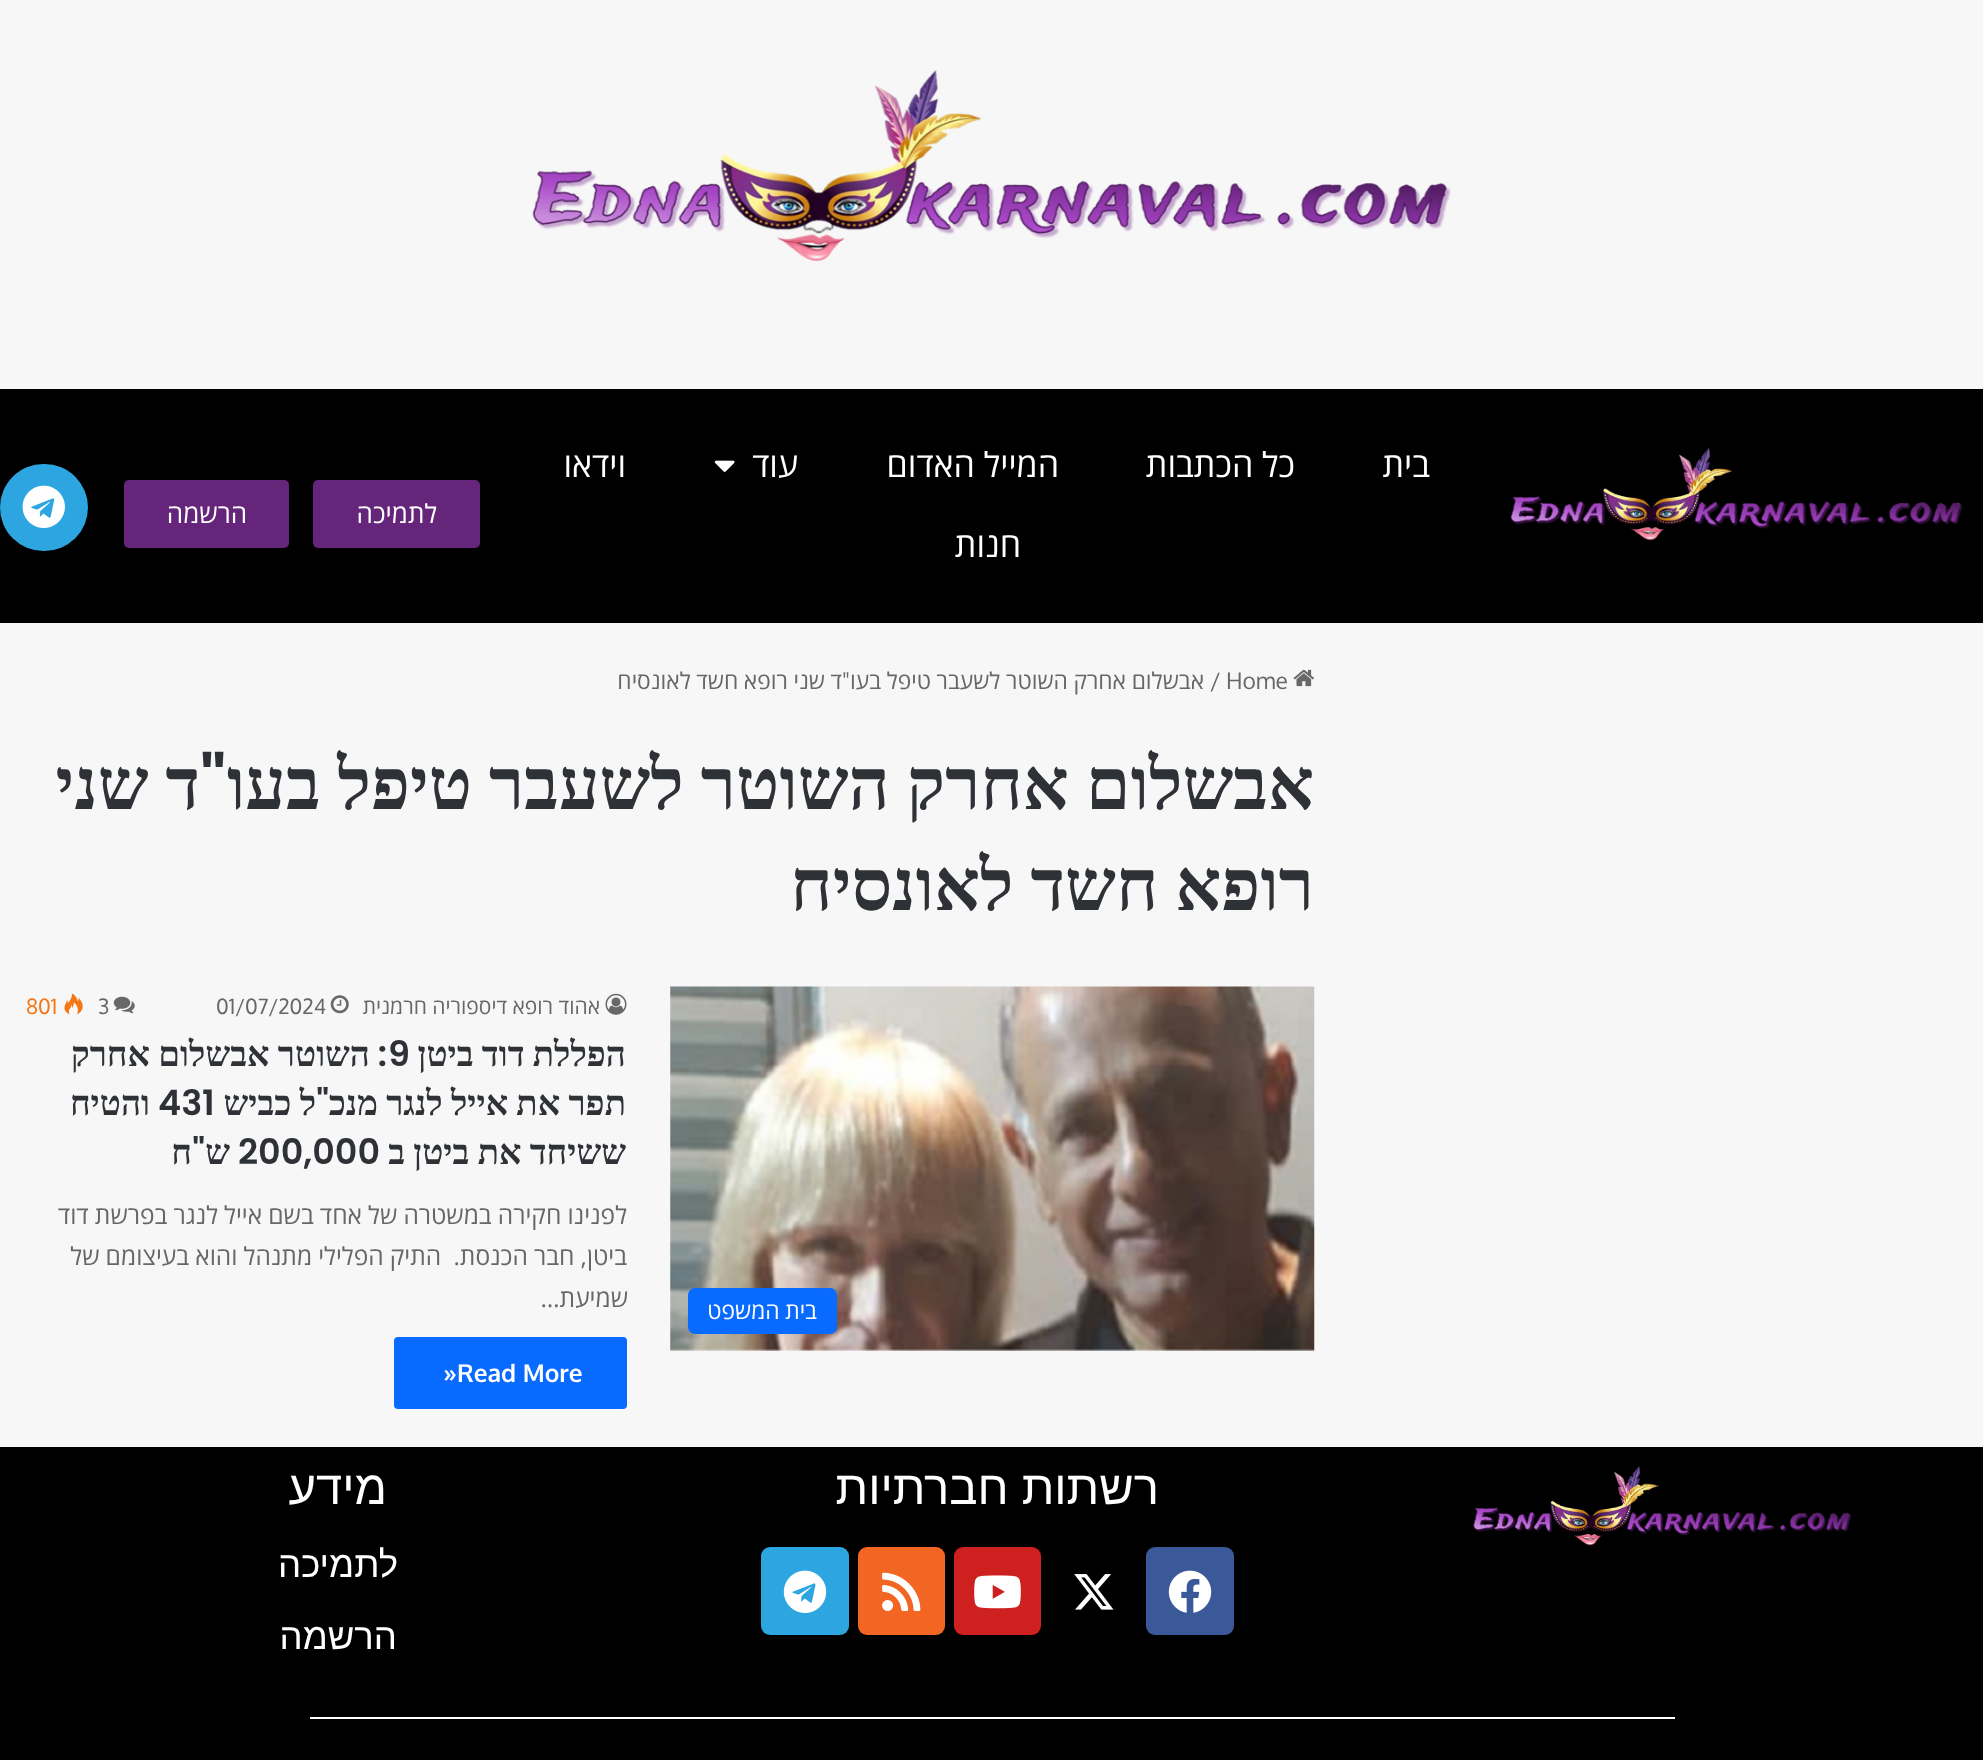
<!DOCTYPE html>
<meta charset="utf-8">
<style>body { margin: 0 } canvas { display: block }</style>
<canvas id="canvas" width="1983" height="1760"></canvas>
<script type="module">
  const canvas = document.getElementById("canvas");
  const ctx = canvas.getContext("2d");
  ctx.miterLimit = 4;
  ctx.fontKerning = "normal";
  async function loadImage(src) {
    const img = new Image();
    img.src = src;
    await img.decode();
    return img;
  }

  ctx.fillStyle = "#f7f7f7";
  ctx.fillRect(0, 0, 1983, 1760);
  ctx.drawImage(await loadImage("img1.png"), 532, 70, 919, 192);
  ctx.fillStyle = "#000000";
  ctx.fillRect(0, 389, 1983, 234);
  ctx.drawImage(await loadImage("img2.png"), 1510, 447, 453, 94);
  ctx.direction = "rtl";
  ctx.font = "34px Open Sans";
  ctx.fillStyle = "#ffffff";
  ctx.fillText("בית", 1430, 477);
  ctx.fillText("כל הכתבות", 1295, 477);
  ctx.fillText("המייל האדום", 1059, 477);
  ctx.fillText("עוד", 798, 477);
  ctx.drawImage(await loadImage("img3.png"), 714, 460, 21, 12);
  ctx.fillText("וידאו", 626, 477);
  ctx.fillText("חנות", 1021, 557);
  ctx.fillStyle = "#65257b";
  ctx.beginPath();
  ctx.roundRect(313, 480, 167, 68, 5);
  ctx.fill();
  ctx.font = "26px Open Sans";
  ctx.fillStyle = "#ffffff";
  ctx.fillText("לתמיכה", 437, 523);
  ctx.fillStyle = "#65257b";
  ctx.beginPath();
  ctx.roundRect(124, 480, 165, 68, 5);
  ctx.fill();
  ctx.fillStyle = "#ffffff";
  ctx.fillText("הרשמה", 247, 523);
  ctx.fillStyle = "#2ca5e0";
  ctx.beginPath();
  ctx.roundRect(0, 464, 88, 87, 43.5);
  ctx.fill();
  ctx.drawImage(await loadImage("img4.png"), 22, 485, 43, 43);
  ctx.drawImage(await loadImage("img5.png"), 1293, 669, 21, 18);
  ctx.direction = "ltr";
  ctx.font = "22.75px Oxygen";
  ctx.fillStyle = "#676767";
  ctx.fillText("Home", 1226, 689);
  ctx.fillText("/", 1210, 689);
  ctx.wordSpacing = "-0.25px";
  ctx.direction = "rtl";
  ctx.font = "22.75px Open Sans";
  ctx.fillText("אבשלום אחרק השוטר לשעבר טיפל בעו", 1204, 689);
  ctx.wordSpacing = "0px";
  ctx.font = "22.75px Oxygen";
  ctx.fillText("\"", 850, 689);
  ctx.wordSpacing = "-0.25px";
  ctx.font = "22.75px Open Sans";
  ctx.fillText("ד שני רופא חשד לאונסיח", 842, 689);
  ctx.wordSpacing = "-1px";
  ctx.font = "bold 71.75px Liberation Serif";
  ctx.fillStyle = "#2e3136";
  ctx.fillText("אבשלום אחרק השוטר לשעבר טיפל בעו", 1314, 809);
  ctx.wordSpacing = "0px";
  ctx.font = "600 71.75px Poppins";
  ctx.fillText("\"", 226, 809);
  ctx.wordSpacing = "-1px";
  ctx.font = "bold 71.75px Liberation Serif";
  ctx.fillText("ד שני", 200, 809);
  ctx.fillText("רופא חשד לאונסיח", 1314, 910);
  ctx.drawImage(await loadImage("img6.png"), 670, 986, 645, 365);
  ctx.fillStyle = "#086aff";
  ctx.beginPath();
  ctx.roundRect(688, 1288, 149, 46, 7);
  ctx.fill();
  ctx.wordSpacing = "-0.25px";
  ctx.font = "22.75px Open Sans";
  ctx.fillStyle = "#ffffff";
  ctx.fillText("בית המשפט", 817, 1319);
  ctx.drawImage(await loadImage("img7.png"), 605, 993, 22, 22);
  ctx.wordSpacing = "0px";
  ctx.font = "21px Open Sans";
  ctx.fillStyle = "#676767";
  ctx.fillText("אהוד רופא דיספוריה חרמנית", 600, 1014);
  ctx.drawImage(await loadImage("img8.png"), 330, 995, 19, 19);
  ctx.direction = "ltr";
  ctx.font = "21px Oxygen";
  ctx.fillText("01/07/2024", 216, 1014);
  ctx.drawImage(await loadImage("img9.png"), 113, 996, 22, 18);
  ctx.fillText("3", 98, 1014);
  ctx.drawImage(await loadImage("img10.png"), 64, 993, 19, 22);
  ctx.fillStyle = "#f47614";
  ctx.fillText("801", 26, 1014);
  ctx.wordSpacing = "-0.5px";
  ctx.direction = "rtl";
  ctx.font = "bold 35px Liberation Serif";
  ctx.fillStyle = "#2e3136";
  ctx.fillText("הפללת דוד ביטן", 626, 1066);
  ctx.wordSpacing = "0px";
  ctx.direction = "ltr";
  ctx.font = "600 35px Poppins";
  ctx.fillText("9", 388, 1066);
  ctx.direction = "rtl";
  ctx.fillText(":", 387, 1066);
  ctx.wordSpacing = "-0.5px";
  ctx.font = "bold 35px Liberation Serif";
  ctx.fillText("השוטר אבשלום אחרק", 370, 1066);
  ctx.fillText("תפר את אייל לנגר מנכ", 626, 1115);
  ctx.wordSpacing = "0px";
  ctx.font = "600 35px Poppins";
  ctx.fillText("\"", 329, 1115);
  ctx.wordSpacing = "-0.5px";
  ctx.font = "bold 35px Liberation Serif";
  ctx.fillText("ל כביש", 316, 1115);
  ctx.wordSpacing = "0px";
  ctx.direction = "ltr";
  ctx.font = "600 35px Poppins";
  ctx.fillText("431", 158, 1115);
  ctx.direction = "rtl";
  ctx.font = "bold 35px Liberation Serif";
  ctx.fillText("והטיח", 150, 1115);
  ctx.wordSpacing = "-0.5px";
  ctx.fillText("ששיחד את ביטן ב", 626, 1164);
  ctx.wordSpacing = "0px";
  ctx.direction = "ltr";
  ctx.font = "600 35px Poppins";
  ctx.fillText("200,000", 238, 1164);
  ctx.direction = "rtl";
  ctx.font = "bold 35px Liberation Serif";
  ctx.fillText("ש", 230, 1164);
  ctx.font = "600 35px Poppins";
  ctx.fillText("\"", 205, 1164);
  ctx.font = "bold 35px Liberation Serif";
  ctx.fillText("ח", 192, 1164);
  ctx.wordSpacing = "-0.25px";
  ctx.font = "24.5px Open Sans";
  ctx.fillStyle = "#676767";
  ctx.fillText("לפנינו חקירה במשטרה של אחד בשם אייל לנגר בפרשת דוד", 627, 1224);
  ctx.fillText("ביטן, חבר הכנסת.  התיק הפלילי מתנהל והוא בעיצומם של", 627, 1265);
  ctx.wordSpacing = "0px";
  ctx.fillText("שמיעת…", 628, 1307);
  ctx.fillStyle = "#086aff";
  ctx.beginPath();
  ctx.roundRect(394, 1337, 233, 72, 4);
  ctx.fill();
  ctx.direction = "ltr";
  ctx.font = "bold 24.5px Oxygen";
  ctx.fillStyle = "#ffffff";
  ctx.fillText("»Read More", 443, 1382);
  ctx.fillStyle = "#000000";
  ctx.fillRect(0, 1447, 1983, 313);
  ctx.drawImage(await loadImage("img11.png"), 1473, 1466, 379, 80);
  ctx.direction = "rtl";
  ctx.font = "47.25px Liberation Sans";
  ctx.fillStyle = "#ffffff";
  ctx.fillText("רשתות חברתיות", 1159, 1504);
  ctx.fillStyle = "#3b5998";
  ctx.beginPath();
  ctx.roundRect(1146, 1547, 88, 88, 9);
  ctx.fill();
  ctx.drawImage(await loadImage("img12.png"), 1168, 1570, 44, 43);
  ctx.drawImage(await loadImage("img13.png"), 1074, 1574, 40, 36);
  ctx.fillStyle = "#cd201f";
  ctx.beginPath();
  ctx.roundRect(954, 1547, 87, 88, 9);
  ctx.fill();
  ctx.drawImage(await loadImage("img14.png"), 974, 1575, 47, 34);
  ctx.fillStyle = "#f26522";
  ctx.beginPath();
  ctx.roundRect(858, 1547, 87, 88, 9);
  ctx.fill();
  ctx.drawImage(await loadImage("img15.png"), 882, 1572, 39, 39);
  ctx.fillStyle = "#2ca5e0";
  ctx.beginPath();
  ctx.roundRect(761, 1547, 88, 88, 9);
  ctx.fill();
  ctx.drawImage(await loadImage("img16.png"), 783, 1570, 44, 43);
  ctx.fillStyle = "#ffffff";
  ctx.fillText("מידע", 387, 1504);
  ctx.font = "36.5px Liberation Sans";
  ctx.fillText("לתמיכה", 398, 1577);
  ctx.fillText("הרשמה", 397, 1649);
  ctx.fillRect(310, 1717, 1365, 2);
</script>
